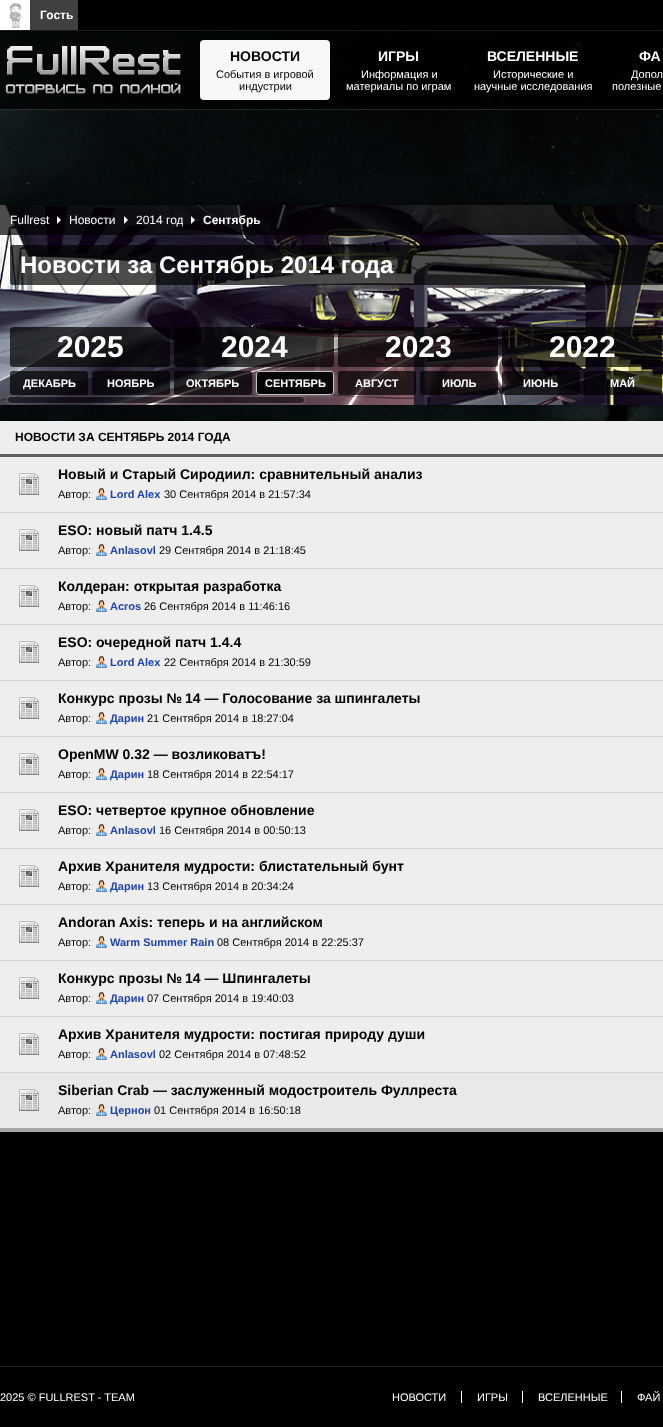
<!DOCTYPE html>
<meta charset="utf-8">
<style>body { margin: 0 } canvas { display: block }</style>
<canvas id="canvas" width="663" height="1427"></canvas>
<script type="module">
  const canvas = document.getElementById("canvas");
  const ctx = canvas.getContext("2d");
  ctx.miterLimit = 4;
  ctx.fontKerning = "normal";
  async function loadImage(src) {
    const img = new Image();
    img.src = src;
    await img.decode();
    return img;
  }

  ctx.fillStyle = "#000000";
  ctx.fillRect(0, 0, 663, 1427);
  ctx.drawImage(await loadImage("img1.png"), 0, 30, 663, 391);
  ctx.fillStyle = "rgba(0, 0, 0, 0.7)";
  ctx.fillRect(0, 30, 663, 80);
  ctx.fillStyle = "rgba(255, 255, 255, 0.15)";
  ctx.fillRect(0, 30, 663, 1);
  ctx.fillStyle = "rgba(0, 0, 0, 0.5)";
  ctx.filter = "blur(1.5px)";
  ctx.beginPath();
  ctx.rect(0, 1, 663, 30);
  ctx.fill();
  ctx.filter = "none";
  ctx.fillStyle = "#404040";
  ctx.fillRect(30, 0, 48, 30);
  ctx.drawImage(await loadImage("img2.png"), 0, 0, 30, 30);
  ctx.font = "bold 12px Liberation Sans";
  ctx.fillStyle = "#ffffff";
  ctx.fillText("Гость", 40, 19);
  ctx.fillStyle = "rgba(255, 255, 255, 0.15)";
  ctx.fillRect(0, 109, 663, 1);
  ctx.drawImage(await loadImage("img3.png"), 5, 46, 176, 48);
  ctx.fillStyle = "#f8f8f8";
  ctx.beginPath();
  ctx.roundRect(200, 40, 130, 60, 4);
  ctx.fill();
  ctx.font = "bold 14px Liberation Sans";
  ctx.fillStyle = "#000000";
  ctx.fillText("НОВОСТИ", 230, 61);
  ctx.font = "11px Liberation Sans";
  ctx.fillText("События в игровой", 216, 78);
  ctx.fillText("индустрии", 239, 90);
  ctx.font = "bold 14px Liberation Sans";
  ctx.fillStyle = "#ffffff";
  ctx.fillText("ИГРЫ", 378, 61);
  ctx.font = "11px Liberation Sans";
  ctx.fillText("Информация и", 361, 78);
  ctx.fillText("материалы по играм", 346, 90);
  ctx.font = "bold 14px Liberation Sans";
  ctx.fillText("ВСЕЛЕННЫЕ", 487, 61);
  ctx.font = "11px Liberation Sans";
  ctx.fillText("Исторические и", 493, 78);
  ctx.fillText("научные исследования", 474, 90);
  ctx.font = "bold 14px Liberation Sans";
  ctx.fillText("ФА", 639, 61);
  ctx.font = "11px Liberation Sans";
  ctx.fillText("Допол", 631, 78);
  ctx.fillText("полезные", 612, 90);
  ctx.fillStyle = "rgba(0, 0, 0, 0.5)";
  ctx.filter = "blur(5px)";
  ctx.beginPath();
  ctx.rect(0, 205, 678, 200);
  ctx.fill();
  ctx.filter = "none";
  ctx.drawImage(await loadImage("img4.png"), 0, 205, 663, 200);
  ctx.fillStyle = "rgba(0, 0, 0, 0.7)";
  ctx.fillRect(0, 205, 663, 30);
  ctx.font = "12px Liberation Sans";
  ctx.fillStyle = "#ffffff";
  ctx.fillText("Fullrest", 10, 224);
  ctx.beginPath();
  ctx.moveTo(57, 224);
  ctx.lineTo(57, 216);
  ctx.lineTo(61, 220);
  ctx.closePath();
  ctx.fill();
  ctx.fillText("Новости", 69, 224);
  ctx.beginPath();
  ctx.moveTo(124, 224);
  ctx.lineTo(124, 216);
  ctx.lineTo(128, 220);
  ctx.closePath();
  ctx.fill();
  ctx.save();
  ctx.beginPath();
  ctx.rect(136, 210, 47, 20);
  ctx.clip();
  ctx.fillText("2014 год", 136, 224);
  ctx.restore();
  ctx.beginPath();
  ctx.moveTo(191, 224);
  ctx.lineTo(191, 216);
  ctx.lineTo(195, 220);
  ctx.closePath();
  ctx.fill();
  ctx.font = "bold 12px Liberation Sans";
  ctx.fillText("Сентябрь", 203, 224);
  ctx.fillStyle = "rgba(0, 0, 0, 0.7)";
  ctx.beginPath();
  ctx.roundRect(10, 245, 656, 40, 3);
  ctx.fill();
  ctx.font = "bold 24px Liberation Sans";
  ctx.fillStyle = "#ffffff";
  ctx.fillText("Новости за Сентябрь 2014 года", 20, 273);
  ctx.fillStyle = "rgba(0, 0, 0, 0.7)";
  ctx.beginPath();
  ctx.roundRect(10, 327, 160, 40, 3);
  ctx.fill();
  ctx.font = "bold 30px Liberation Sans";
  ctx.fillStyle = "#ffffff";
  ctx.fillText("2025", 57, 357);
  ctx.fillStyle = "rgba(0, 0, 0, 0.7)";
  ctx.beginPath();
  ctx.roundRect(174, 327, 160, 40, 3);
  ctx.fill();
  ctx.fillStyle = "#ffffff";
  ctx.fillText("2024", 221, 357);
  ctx.fillStyle = "rgba(0, 0, 0, 0.7)";
  ctx.beginPath();
  ctx.roundRect(338, 327, 160, 40, 3);
  ctx.fill();
  ctx.fillStyle = "#ffffff";
  ctx.fillText("2023", 385, 357);
  ctx.fillStyle = "rgba(0, 0, 0, 0.7)";
  ctx.beginPath();
  ctx.roundRect(502, 327, 160, 40, 3);
  ctx.fill();
  ctx.fillStyle = "#ffffff";
  ctx.fillText("2022", 549, 357);
  ctx.fillStyle = "rgba(0, 0, 0, 0.7)";
  ctx.beginPath();
  ctx.roundRect(10, 371, 78, 24, 3);
  ctx.fill();
  ctx.font = "bold 11px Liberation Sans";
  ctx.fillStyle = "#ffffff";
  ctx.fillText("ДЕКАБРЬ", 23, 387);
  ctx.fillStyle = "rgba(0, 0, 0, 0.7)";
  ctx.beginPath();
  ctx.roundRect(92, 371, 78, 24, 3);
  ctx.fill();
  ctx.fillStyle = "#ffffff";
  ctx.fillText("НОЯБРЬ", 107, 387);
  ctx.fillStyle = "rgba(0, 0, 0, 0.7)";
  ctx.beginPath();
  ctx.roundRect(174, 371, 78, 24, 3);
  ctx.fill();
  ctx.fillStyle = "#ffffff";
  ctx.fillText("ОКТЯБРЬ", 186, 387);
  ctx.save();
  ctx.beginPath();
  ctx.moveTo(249, 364);
  ctx.lineTo(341, 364);
  ctx.lineTo(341, 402);
  ctx.lineTo(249, 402);
  ctx.closePath();
  ctx.moveTo(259, 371);
  ctx.lineTo(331, 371);
  ctx.bezierCurveTo(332.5, 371, 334, 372.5, 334, 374);
  ctx.lineTo(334, 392);
  ctx.bezierCurveTo(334, 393.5, 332.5, 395, 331, 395);
  ctx.lineTo(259, 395);
  ctx.bezierCurveTo(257.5, 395, 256, 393.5, 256, 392);
  ctx.lineTo(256, 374);
  ctx.bezierCurveTo(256, 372.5, 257.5, 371, 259, 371);
  ctx.closePath();
  ctx.clip("evenodd");
  ctx.fillStyle = "rgba(255, 255, 255, 0.4)";
  ctx.filter = "blur(2px)";
  ctx.beginPath();
  ctx.roundRect(256, 371, 78, 24, 3);
  ctx.fill();
  ctx.filter = "none";
  ctx.restore();
  ctx.fillStyle = "rgba(0, 0, 0, 0.9)";
  ctx.beginPath();
  ctx.roundRect(256, 371, 78, 24, 3);
  ctx.fill();
  ctx.beginPath();
  ctx.roundRect(256.5, 371.5, 77, 23, 2.5);
  ctx.strokeStyle = "rgba(255, 255, 255, 0.75)";
  ctx.stroke();
  ctx.fillStyle = "#ffffff";
  ctx.fillText("СЕНТЯБРЬ", 265, 387);
  ctx.fillStyle = "rgba(0, 0, 0, 0.7)";
  ctx.beginPath();
  ctx.roundRect(338, 371, 78, 24, 3);
  ctx.fill();
  ctx.fillStyle = "#ffffff";
  ctx.fillText("АВГУСТ", 355, 387);
  ctx.fillStyle = "rgba(0, 0, 0, 0.7)";
  ctx.beginPath();
  ctx.roundRect(420, 371, 78, 24, 3);
  ctx.fill();
  ctx.fillStyle = "#ffffff";
  ctx.fillText("ИЮЛЬ", 442, 387);
  ctx.fillStyle = "rgba(0, 0, 0, 0.7)";
  ctx.beginPath();
  ctx.roundRect(502, 371, 78, 24, 3);
  ctx.fill();
  ctx.fillStyle = "#ffffff";
  ctx.fillText("ИЮНЬ", 523, 387);
  ctx.fillStyle = "rgba(0, 0, 0, 0.7)";
  ctx.beginPath();
  ctx.roundRect(584, 371, 78, 24, 3);
  ctx.fill();
  ctx.fillStyle = "#ffffff";
  ctx.fillText("МАЙ", 610, 387);
  ctx.save();
  ctx.beginPath();
  ctx.moveTo(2, 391);
  ctx.lineTo(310, 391);
  ctx.lineTo(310, 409);
  ctx.lineTo(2, 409);
  ctx.closePath();
  ctx.moveTo(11, 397);
  ctx.lineTo(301, 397);
  ctx.bezierCurveTo(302.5, 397, 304, 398.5, 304, 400);
  ctx.bezierCurveTo(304, 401.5, 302.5, 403, 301, 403);
  ctx.lineTo(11, 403);
  ctx.bezierCurveTo(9.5, 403, 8, 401.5, 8, 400);
  ctx.bezierCurveTo(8, 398.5, 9.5, 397, 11, 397);
  ctx.closePath();
  ctx.clip("evenodd");
  ctx.fillStyle = "rgba(255, 255, 255, 0.4)";
  ctx.filter = "blur(1.5px)";
  ctx.beginPath();
  ctx.roundRect(8, 397, 296, 6, 3);
  ctx.fill();
  ctx.filter = "none";
  ctx.restore();
  ctx.fillStyle = "rgba(0, 0, 0, 0.5)";
  ctx.beginPath();
  ctx.roundRect(8, 397, 296, 6, 3);
  ctx.fill();
  ctx.filter = "blur(5px)";
  ctx.beginPath();
  ctx.rect(0, 421, 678, 711);
  ctx.fill();
  ctx.filter = "none";
  ctx.fillStyle = "#eeeeee";
  ctx.fillRect(0, 421, 663, 651);
  ctx.fillStyle = "#5f5f5f";
  ctx.fillRect(0, 454, 663, 3);
  ctx.font = "bold 12px Liberation Sans";
  ctx.fillStyle = "#000000";
  ctx.fillText("НОВОСТИ ЗА СЕНТЯБРЬ 2014 ГОДА", 15, 441);
  ctx.drawImage(await loadImage("img5.png"), 19, 473, 20, 22);
  ctx.font = "bold 14px Liberation Sans";
  ctx.fillText("Новый и Старый Сиродиил: сравнительный анализ", 58, 479);
  ctx.font = "11px Liberation Sans";
  ctx.fillText("Автор:", 58, 498);
  ctx.drawImage(await loadImage("img6.png"), 96, 488, 11, 12);
  ctx.font = "bold 11px Liberation Sans";
  ctx.fillStyle = "#1e43af";
  ctx.fillText("Lord Alex", 110, 498);
  ctx.font = "11px Liberation Sans";
  ctx.fillStyle = "#000000";
  ctx.fillText("30 Сентября 2014 в 21:57:34", 164, 498);
  ctx.fillStyle = "#d6d6d6";
  ctx.fillRect(0, 512, 663, 1);
  ctx.drawImage(await loadImage("img7.png"), 19, 529, 20, 22);
  ctx.font = "bold 14px Liberation Sans";
  ctx.fillStyle = "#000000";
  ctx.fillText("ESO: новый патч 1.4.5", 58, 535);
  ctx.font = "11px Liberation Sans";
  ctx.fillText("Автор:", 58, 554);
  ctx.drawImage(await loadImage("img8.png"), 96, 544, 11, 12);
  ctx.font = "bold 11px Liberation Sans";
  ctx.fillStyle = "#1e43af";
  ctx.fillText("Anlasovl", 110, 554);
  ctx.font = "11px Liberation Sans";
  ctx.fillStyle = "#000000";
  ctx.fillText("29 Сентября 2014 в 21:18:45", 159, 554);
  ctx.fillStyle = "#d6d6d6";
  ctx.fillRect(0, 568, 663, 1);
  ctx.drawImage(await loadImage("img5.png"), 19, 585, 20, 22);
  ctx.font = "bold 14px Liberation Sans";
  ctx.fillStyle = "#000000";
  ctx.fillText("Колдеран: открытая разработка", 58, 591);
  ctx.font = "11px Liberation Sans";
  ctx.fillText("Автор:", 58, 610);
  ctx.drawImage(await loadImage("img6.png"), 96, 600, 11, 12);
  ctx.font = "bold 11px Liberation Sans";
  ctx.fillStyle = "#1e43af";
  ctx.fillText("Acros", 110, 610);
  ctx.font = "11px Liberation Sans";
  ctx.fillStyle = "#000000";
  ctx.fillText("26 Сентября 2014 в 11:46:16", 144, 610);
  ctx.fillStyle = "#d6d6d6";
  ctx.fillRect(0, 624, 663, 1);
  ctx.drawImage(await loadImage("img7.png"), 19, 641, 20, 22);
  ctx.font = "bold 14px Liberation Sans";
  ctx.fillStyle = "#000000";
  ctx.fillText("ESO: очередной патч 1.4.4", 58, 647);
  ctx.font = "11px Liberation Sans";
  ctx.fillText("Автор:", 58, 666);
  ctx.drawImage(await loadImage("img8.png"), 96, 656, 11, 12);
  ctx.font = "bold 11px Liberation Sans";
  ctx.fillStyle = "#1e43af";
  ctx.fillText("Lord Alex", 110, 666);
  ctx.font = "11px Liberation Sans";
  ctx.fillStyle = "#000000";
  ctx.fillText("22 Сентября 2014 в 21:30:59", 164, 666);
  ctx.fillStyle = "#d6d6d6";
  ctx.fillRect(0, 680, 663, 1);
  ctx.drawImage(await loadImage("img5.png"), 19, 697, 20, 22);
  ctx.font = "bold 14px Liberation Sans";
  ctx.fillStyle = "#000000";
  ctx.fillText("Конкурс прозы № 14 — Голосование за шпингалеты", 58, 703);
  ctx.font = "11px Liberation Sans";
  ctx.fillText("Автор:", 58, 722);
  ctx.drawImage(await loadImage("img6.png"), 96, 712, 11, 12);
  ctx.font = "bold 11px Liberation Sans";
  ctx.fillStyle = "#1e43af";
  ctx.fillText("Дарин", 110, 722);
  ctx.font = "11px Liberation Sans";
  ctx.fillStyle = "#000000";
  ctx.fillText("21 Сентября 2014 в 18:27:04", 147, 722);
  ctx.fillStyle = "#d6d6d6";
  ctx.fillRect(0, 736, 663, 1);
  ctx.drawImage(await loadImage("img7.png"), 19, 753, 20, 22);
  ctx.font = "bold 14px Liberation Sans";
  ctx.fillStyle = "#000000";
  ctx.fillText("OpenMW 0.32 — возликоватъ!", 58, 759);
  ctx.font = "11px Liberation Sans";
  ctx.fillText("Автор:", 58, 778);
  ctx.drawImage(await loadImage("img8.png"), 96, 768, 11, 12);
  ctx.font = "bold 11px Liberation Sans";
  ctx.fillStyle = "#1e43af";
  ctx.fillText("Дарин", 110, 778);
  ctx.font = "11px Liberation Sans";
  ctx.fillStyle = "#000000";
  ctx.fillText("18 Сентября 2014 в 22:54:17", 147, 778);
  ctx.fillStyle = "#d6d6d6";
  ctx.fillRect(0, 792, 663, 1);
  ctx.drawImage(await loadImage("img5.png"), 19, 809, 20, 22);
  ctx.font = "bold 14px Liberation Sans";
  ctx.fillStyle = "#000000";
  ctx.fillText("ESO: четвертое крупное обновление", 58, 815);
  ctx.font = "11px Liberation Sans";
  ctx.fillText("Автор:", 58, 834);
  ctx.drawImage(await loadImage("img6.png"), 96, 824, 11, 12);
  ctx.font = "bold 11px Liberation Sans";
  ctx.fillStyle = "#1e43af";
  ctx.fillText("Anlasovl", 110, 834);
  ctx.font = "11px Liberation Sans";
  ctx.fillStyle = "#000000";
  ctx.fillText("16 Сентября 2014 в 00:50:13", 159, 834);
  ctx.fillStyle = "#d6d6d6";
  ctx.fillRect(0, 848, 663, 1);
  ctx.drawImage(await loadImage("img7.png"), 19, 865, 20, 22);
  ctx.font = "bold 14px Liberation Sans";
  ctx.fillStyle = "#000000";
  ctx.fillText("Архив Хранителя мудрости: блистательный бунт", 58, 871);
  ctx.font = "11px Liberation Sans";
  ctx.fillText("Автор:", 58, 890);
  ctx.drawImage(await loadImage("img8.png"), 96, 880, 11, 12);
  ctx.font = "bold 11px Liberation Sans";
  ctx.fillStyle = "#1e43af";
  ctx.fillText("Дарин", 110, 890);
  ctx.font = "11px Liberation Sans";
  ctx.fillStyle = "#000000";
  ctx.fillText("13 Сентября 2014 в 20:34:24", 147, 890);
  ctx.fillStyle = "#d6d6d6";
  ctx.fillRect(0, 904, 663, 1);
  ctx.drawImage(await loadImage("img5.png"), 19, 921, 20, 22);
  ctx.font = "bold 14px Liberation Sans";
  ctx.fillStyle = "#000000";
  ctx.fillText("Andoran Axis: теперь и на английском", 58, 927);
  ctx.font = "11px Liberation Sans";
  ctx.fillText("Автор:", 58, 946);
  ctx.drawImage(await loadImage("img6.png"), 96, 936, 11, 12);
  ctx.font = "bold 11px Liberation Sans";
  ctx.fillStyle = "#1e43af";
  ctx.fillText("Warm Summer Rain", 110, 946);
  ctx.font = "11px Liberation Sans";
  ctx.fillStyle = "#000000";
  ctx.fillText("08 Сентября 2014 в 22:25:37", 217, 946);
  ctx.fillStyle = "#d6d6d6";
  ctx.fillRect(0, 960, 663, 1);
  ctx.drawImage(await loadImage("img7.png"), 19, 977, 20, 22);
  ctx.font = "bold 14px Liberation Sans";
  ctx.fillStyle = "#000000";
  ctx.fillText("Конкурс прозы № 14 — Шпингалеты", 58, 983);
  ctx.font = "11px Liberation Sans";
  ctx.fillText("Автор:", 58, 1002);
  ctx.drawImage(await loadImage("img8.png"), 96, 992, 11, 12);
  ctx.font = "bold 11px Liberation Sans";
  ctx.fillStyle = "#1e43af";
  ctx.fillText("Дарин", 110, 1002);
  ctx.font = "11px Liberation Sans";
  ctx.fillStyle = "#000000";
  ctx.fillText("07 Сентября 2014 в 19:40:03", 147, 1002);
  ctx.fillStyle = "#d6d6d6";
  ctx.fillRect(0, 1016, 663, 1);
  ctx.drawImage(await loadImage("img5.png"), 19, 1033, 20, 22);
  ctx.font = "bold 14px Liberation Sans";
  ctx.fillStyle = "#000000";
  ctx.fillText("Архив Хранителя мудрости: постигая природу души", 58, 1039);
  ctx.font = "11px Liberation Sans";
  ctx.fillText("Автор:", 58, 1058);
  ctx.drawImage(await loadImage("img6.png"), 96, 1048, 11, 12);
  ctx.font = "bold 11px Liberation Sans";
  ctx.fillStyle = "#1e43af";
  ctx.fillText("Anlasovl", 110, 1058);
  ctx.font = "11px Liberation Sans";
  ctx.fillStyle = "#000000";
  ctx.fillText("02 Сентября 2014 в 07:48:52", 159, 1058);
  ctx.fillStyle = "#d6d6d6";
  ctx.fillRect(0, 1072, 663, 1);
  ctx.fillStyle = "#e9e9e9";
  ctx.fillRect(0, 1073, 663, 55);
  ctx.drawImage(await loadImage("img9.png"), 19, 1089, 20, 22);
  ctx.font = "bold 14px Liberation Sans";
  ctx.fillStyle = "#000000";
  ctx.fillText("Siberian Crab — заслуженный модостроитель Фуллреста", 58, 1095);
  ctx.font = "11px Liberation Sans";
  ctx.fillText("Автор:", 58, 1114);
  ctx.drawImage(await loadImage("img10.png"), 96, 1104, 11, 12);
  ctx.font = "bold 11px Liberation Sans";
  ctx.fillStyle = "#1e43af";
  ctx.fillText("Цернон", 110, 1114);
  ctx.font = "11px Liberation Sans";
  ctx.fillStyle = "#000000";
  ctx.fillText("01 Сентября 2014 в 16:50:18", 154, 1114);
  ctx.fillStyle = "#a7a7a7";
  ctx.fillRect(0, 1128, 663, 4);
  ctx.fillStyle = "#262626";
  ctx.fillRect(0, 1366, 663, 1);
  ctx.fillStyle = "#ffffff";
  ctx.fillText("2025 © FULLREST - TEAM", 0, 1401);
  ctx.fillText("НОВОСТИ", 392, 1401);
  ctx.fillRect(461, 1391, 1, 12);
  ctx.fillText("ИГРЫ", 477, 1401);
  ctx.fillRect(522, 1391, 1, 12);
  ctx.fillText("ВСЕЛЕННЫЕ", 538, 1401);
  ctx.fillRect(621, 1391, 1, 12);
  ctx.fillText("ФАЙ", 637, 1401);
</script>
